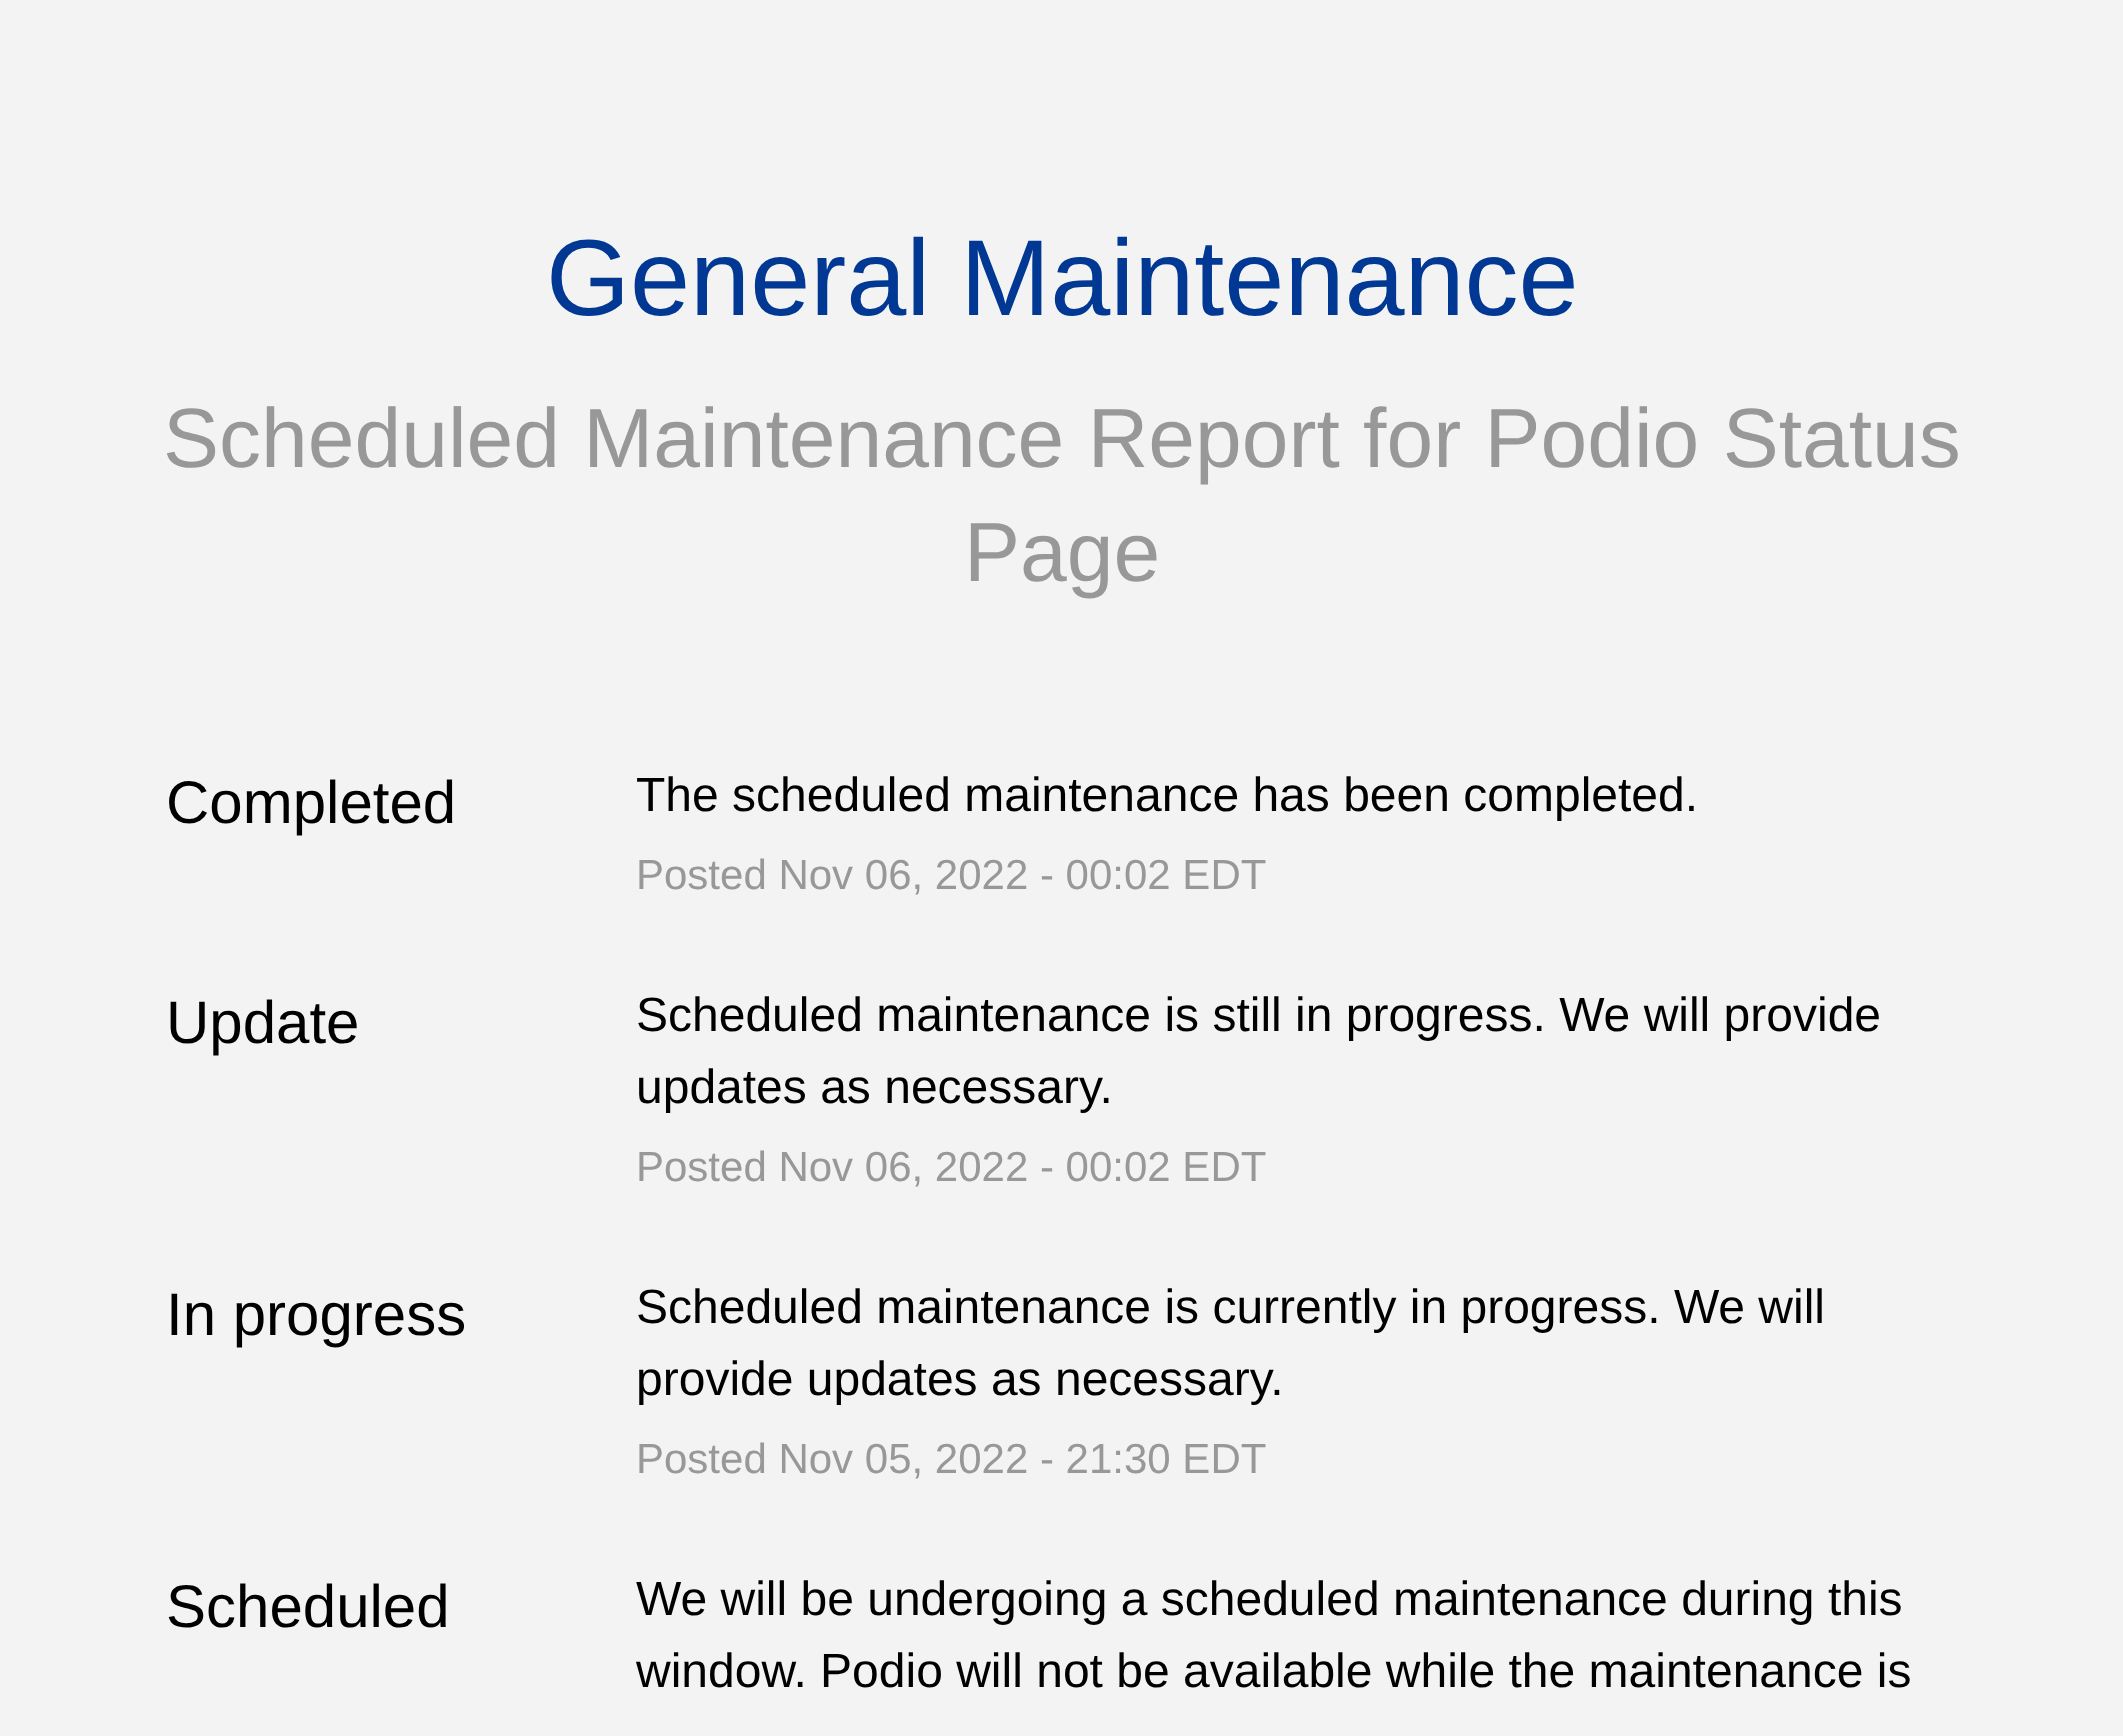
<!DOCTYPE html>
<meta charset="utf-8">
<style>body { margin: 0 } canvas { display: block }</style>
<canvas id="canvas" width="2123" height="1736"></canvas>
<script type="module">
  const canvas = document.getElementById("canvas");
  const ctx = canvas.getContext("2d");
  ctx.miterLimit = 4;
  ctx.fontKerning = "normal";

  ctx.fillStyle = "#f3f3f3";
  ctx.fillRect(0, 0, 2123, 1736);
  ctx.font = "108px Liberation Sans";
  ctx.fillStyle = "#003894";
  ctx.fillText("General Maintenance", 546, 315);
  ctx.font = "84px Liberation Sans";
  ctx.fillStyle = "#989898";
  ctx.fillText("Scheduled Maintenance Report for Podio Status", 163, 467);
  ctx.fillText("Page", 964, 581);
  ctx.font = "60px Liberation Sans";
  ctx.fillStyle = "#000000";
  ctx.fillText("Completed", 166, 823);
  ctx.font = "48px Liberation Sans";
  ctx.fillText("The scheduled maintenance has been completed.", 636, 811);
  ctx.font = "42px Liberation Sans";
  ctx.fillStyle = "#989898";
  ctx.fillText("Posted Nov 06, 2022 - 00:02 EDT", 636, 889);
  ctx.font = "60px Liberation Sans";
  ctx.fillStyle = "#000000";
  ctx.fillText("Update", 166, 1043);
  ctx.font = "48px Liberation Sans";
  ctx.fillText("Scheduled maintenance is still in progress. We will provide", 636, 1031);
  ctx.fillText("updates as necessary.", 636, 1103);
  ctx.font = "42px Liberation Sans";
  ctx.fillStyle = "#989898";
  ctx.fillText("Posted Nov 06, 2022 - 00:02 EDT", 636, 1181);
  ctx.font = "60px Liberation Sans";
  ctx.fillStyle = "#000000";
  ctx.fillText("In progress", 166, 1335);
  ctx.font = "48px Liberation Sans";
  ctx.fillText("Scheduled maintenance is currently in progress. We will", 636, 1323);
  ctx.fillText("provide updates as necessary.", 636, 1395);
  ctx.font = "42px Liberation Sans";
  ctx.fillStyle = "#989898";
  ctx.fillText("Posted Nov 05, 2022 - 21:30 EDT", 636, 1473);
  ctx.font = "60px Liberation Sans";
  ctx.fillStyle = "#000000";
  ctx.fillText("Scheduled", 166, 1627);
  ctx.font = "48px Liberation Sans";
  ctx.fillText("We will be undergoing a scheduled maintenance during this", 636, 1615);
  ctx.fillText("window. Podio will not be available while the maintenance is", 636, 1687);
</script>
